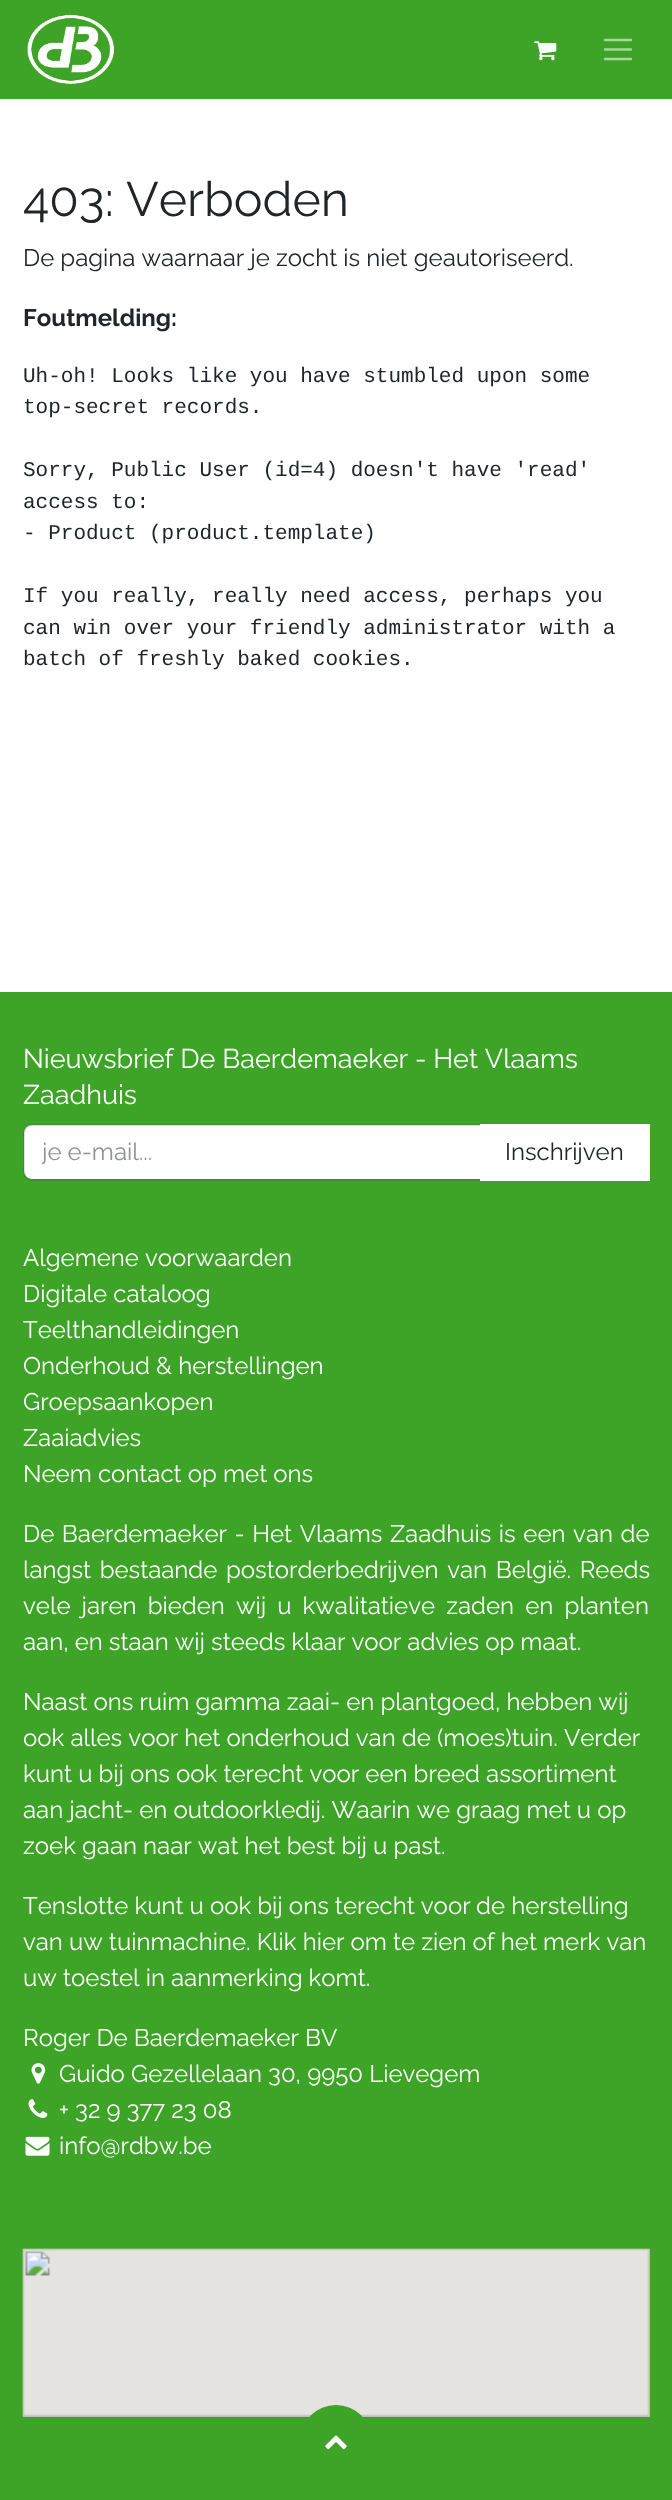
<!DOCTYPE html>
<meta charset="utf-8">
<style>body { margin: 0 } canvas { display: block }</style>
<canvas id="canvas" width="672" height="2500"></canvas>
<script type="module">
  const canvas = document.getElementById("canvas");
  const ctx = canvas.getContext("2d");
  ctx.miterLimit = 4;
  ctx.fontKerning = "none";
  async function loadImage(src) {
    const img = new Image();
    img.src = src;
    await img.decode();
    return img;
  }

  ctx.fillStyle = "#ffffff";
  ctx.fillRect(0, 0, 672, 2500);
  ctx.fillStyle = "#3ea427";
  ctx.fillRect(0, 0, 672, 99);
  ctx.drawImage(await loadImage("img1.png"), 27, 14, 88, 70);
  ctx.drawImage(await loadImage("img2.png"), 534, 41, 23, 20);
  ctx.beginPath();
  ctx.moveTo(605, 40);
  ctx.lineTo(631, 40);
  ctx.moveTo(605, 49.5);
  ctx.lineTo(631, 49.5);
  ctx.moveTo(605, 59);
  ctx.lineTo(631, 59);
  ctx.strokeStyle = "#a8d69e";
  ctx.lineWidth = 2.4;
  ctx.lineCap = "round";
  ctx.stroke();
  ctx.font = "48.25px Raleway";
  ctx.fillStyle = "#212529";
  ctx.fillText("403: Verboden", 23, 216);
  ctx.font = "24px Raleway";
  ctx.fillText("De pagina waarnaar je zocht is niet geautoriseerd.", 23, 266);
  ctx.font = "bold 24px Raleway";
  ctx.fillText("Foutmelding:", 23, 326);
  ctx.font = "21px Liberation Mono";
  ctx.fillText("Uh-oh! Looks like you have stumbled upon some", 23, 382);
  ctx.fillText("top-secret records.", 23, 413);
  ctx.fillText("Sorry, Public User (id=4) doesn't have 'read'", 23, 476);
  ctx.fillText("access to:", 23, 508);
  ctx.fillText("- Product (product.template)", 23, 539);
  ctx.fillText("If you really, really need access, perhaps you", 23, 602);
  ctx.fillText("can win over your friendly administrator with a", 23, 634);
  ctx.fillText("batch of freshly baked cookies.", 23, 665);
  ctx.fillStyle = "#3ea427";
  ctx.fillRect(0, 992, 672, 1508);
  ctx.font = "27px Raleway";
  ctx.fillStyle = "#ffffff";
  ctx.fillText("Nieuwsbrief De Baerdemaeker - Het Vlaams", 23, 1068);
  ctx.fillText("Zaadhuis", 23, 1104);
  ctx.beginPath();
  ctx.roundRect(24, 1125, 456, 54, [8, 0, 0, 8]);
  ctx.fill();
  ctx.beginPath();
  ctx.roundRect(24, 1125, 457, 55, [8, 0, 0, 8]);
  ctx.strokeStyle = "rgba(33, 37, 41, 0.15)";
  ctx.lineWidth = 2;
  ctx.stroke();
  ctx.save();
  ctx.beginPath();
  ctx.rect(42, 1137, 420, 29);
  ctx.clip();
  ctx.font = "24px Raleway";
  ctx.fillStyle = "#909294";
  ctx.fillText("je e-mail...", 42, 1160);
  ctx.restore();
  ctx.fillRect(480, 1124, 170, 57);
  ctx.font = "24px Raleway";
  ctx.fillStyle = "#212529";
  ctx.fillText("Inschrijven", 505, 1160);
  ctx.fillStyle = "#ffffff";
  ctx.fillText("Algemene voorwaarden", 23, 1266);
  ctx.fillText("Digitale cataloog", 23, 1302);
  ctx.fillText("Teelthandleidingen", 23, 1338);
  ctx.fillText("Onderhoud & herstellingen ", 23, 1374);
  ctx.fillText("Groepsaankopen", 23, 1410);
  ctx.fillText("Zaaiadvies", 23, 1446);
  ctx.fillText("Neem contact op met ons", 23, 1482);
  ctx.wordSpacing = "1.5px";
  ctx.fillText("De Baerdemaeker - Het Vlaams Zaadhuis is een van de", 23, 1542);
  ctx.wordSpacing = "2.5px";
  ctx.fillText("langst bestaande postorderbedrijven van België. Reeds", 23, 1578);
  ctx.wordSpacing = "5px";
  ctx.fillText("vele jaren bieden wij u kwalitatieve zaden en planten", 23, 1614);
  ctx.wordSpacing = "0px";
  ctx.fillText("aan, en staan wij steeds klaar voor advies op maat.", 23, 1650);
  ctx.fillText("Naast ons ruim gamma zaai- en plantgoed, hebben wij", 23, 1710);
  ctx.fillText("ook alles voor het onderhoud van de (moes)tuin. Verder", 23, 1746);
  ctx.fillText("kunt u bij ons ook terecht voor een breed assortiment", 23, 1782);
  ctx.fillText("aan jacht- en outdoorkledij. Waarin we graag met u op", 23, 1818);
  ctx.fillText("zoek gaan naar wat het best bij u past.", 23, 1854);
  ctx.fillText("Tenslotte kunt u ook bij ons terecht voor", 23, 1914);
  ctx.fillText("de herstelling", 476, 1914);
  ctx.fillText("van uw tuinmachine. Klik hier om te zien of het merk van", 23, 1950);
  ctx.fillText("uw toestel in aanmerking komt.", 23, 1986);
  ctx.fillText("Roger De Baerdemaeker BV", 23, 2046);
  ctx.drawImage(await loadImage("img3.png"), 31, 2063, 15, 21);
  ctx.fillText("Guido Gezellelaan 30, 9950 Lievegem", 59, 2082);
  ctx.drawImage(await loadImage("img4.png"), 28, 2099, 20, 19);
  ctx.fillText("+ 32 9 377 23 08", 59, 2118);
  ctx.drawImage(await loadImage("img5.png"), 25, 2136, 25, 20);
  ctx.fillText("info@rdbw.be", 59, 2154);
  ctx.drawImage(await loadImage("img6.png"), 22, 2248, 628, 169);
  ctx.fillStyle = "#3ea427";
  ctx.beginPath();
  ctx.arc(336, 2441, 36, 0, Math.PI * 2);
  ctx.fill();
  ctx.drawImage(await loadImage("img7.png"), 325, 2435, 22, 15);
</script>
